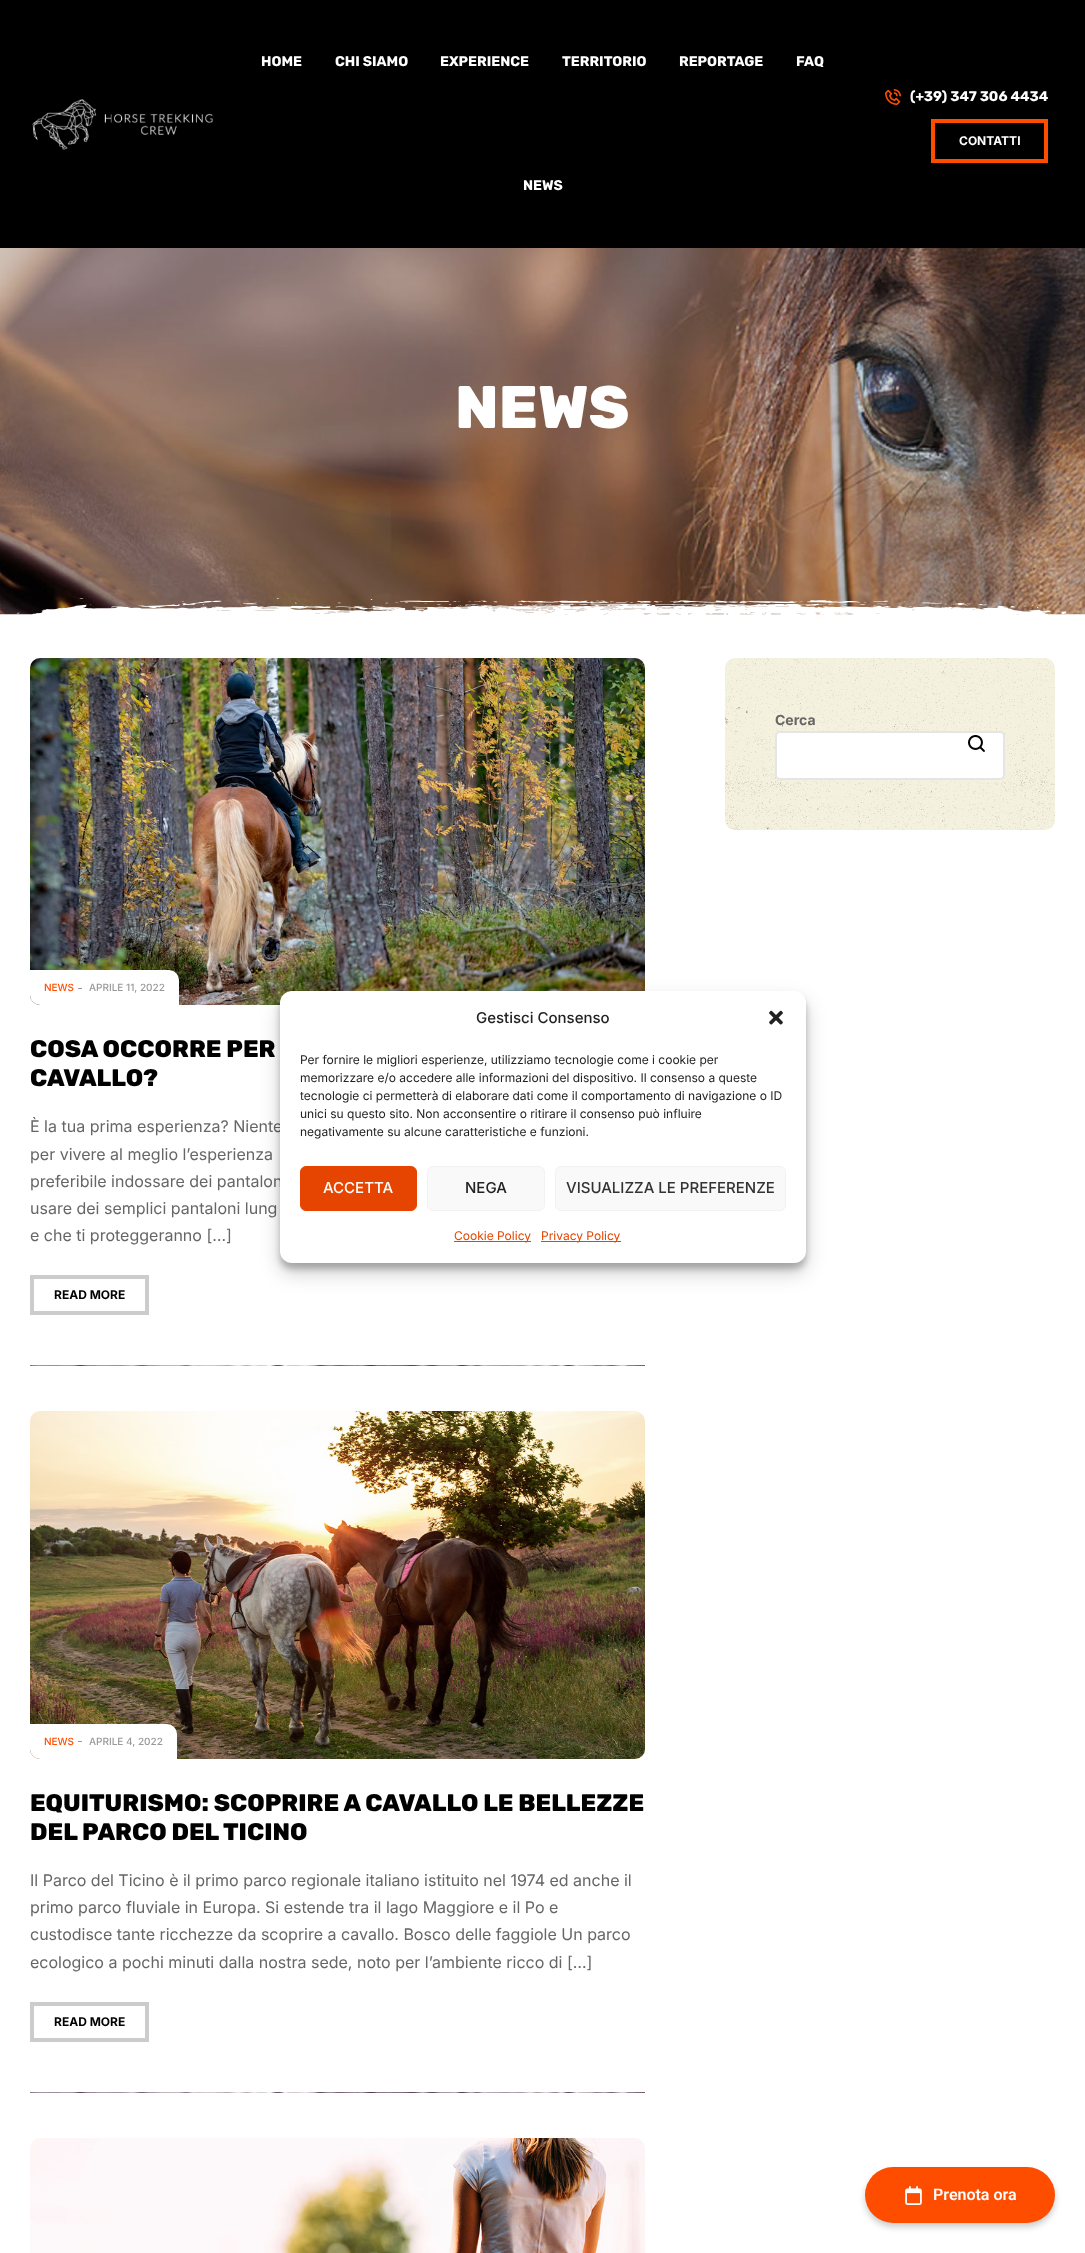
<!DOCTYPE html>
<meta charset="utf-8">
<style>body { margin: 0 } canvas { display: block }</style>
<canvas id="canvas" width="1085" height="2253"></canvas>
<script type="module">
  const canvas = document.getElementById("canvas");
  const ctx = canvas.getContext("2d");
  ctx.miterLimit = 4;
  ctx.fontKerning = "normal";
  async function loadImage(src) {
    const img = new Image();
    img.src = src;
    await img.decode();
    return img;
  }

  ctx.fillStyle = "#ffffff";
  ctx.fillRect(0, 0, 1085, 2253);
  ctx.fillStyle = "#000000";
  ctx.fillRect(0, 0, 1085, 248);
  ctx.drawImage(await loadImage("img1.png"), 32, 99, 181, 51);
  ctx.font = "bold 14px Rubik";
  ctx.fillStyle = "#ffffff";
  ctx.fillText("HOME", 261, 66);
  ctx.fillText("CHI SIAMO", 335, 66);
  ctx.fillText("EXPERIENCE", 440, 66);
  ctx.fillText("TERRITORIO", 562, 66);
  ctx.fillText("REPORTAGE", 679, 66);
  ctx.fillText("FAQ", 796, 66);
  ctx.fillText("NEWS", 523, 190);
  ctx.drawImage(await loadImage("img2.png"), 885, 89, 16, 16);
  ctx.fillText("(+39) 347 306 4434", 910, 101);
  ctx.strokeStyle = "#ff4d00";
  ctx.lineWidth = 4;
  ctx.strokeRect(933, 121, 113, 40);
  ctx.font = "bold 12px Inter";
  ctx.fillText("CONTATTI", 959, 145);
  ctx.drawImage(await loadImage("img3.png"), 0, 248, 1085, 367);
  ctx.font = "800 60px Rubik";
  ctx.fillText("NEWS", 455, 428);
  ctx.drawImage(await loadImage("img4.png"), 0, 598, 1085, 20);
  ctx.fillStyle = "#f5f1df";
  ctx.beginPath();
  ctx.roundRect(725, 658, 330, 172, 10);
  ctx.fill();
  ctx.drawImage(await loadImage("img5.png"), 725, 658, 330, 172);
  ctx.font = "bold 14px Inter";
  ctx.fillStyle = "#666666";
  ctx.fillText("Cerca", 775, 725);
  ctx.fillStyle = "#ffffff";
  ctx.beginPath();
  ctx.roundRect(776, 732, 228, 47, 4);
  ctx.fill();
  ctx.strokeStyle = "#e5e5e5";
  ctx.lineWidth = 2;
  ctx.stroke();
  ctx.drawImage(await loadImage("img6.png"), 968, 735, 17, 17);
  ctx.drawImage(await loadImage("img7.png"), 30, 1365, 615, 1);
  ctx.drawImage(await loadImage("img8.png"), 30, 658, 615, 347);
  ctx.beginPath();
  ctx.roundRect(30, 970, 149, 35, [0, 10, 0, 10]);
  ctx.fill();
  ctx.font = "500 10px Inter";
  ctx.fillStyle = "#ff4d00";
  ctx.fillText("NEWS", 44, 991);
  ctx.fillStyle = "#999999";
  ctx.fillRect(78, 988, 4, 1);
  ctx.fillText("APRILE 11, 2022", 89, 991);
  ctx.font = "800 24px Rubik";
  ctx.fillStyle = "#000000";
  ctx.fillText("COSA OCCORRE PER", 30, 1057);
  ctx.fillText("CAVALLO?", 30, 1086);
  ctx.font = "16px Inter";
  ctx.fillStyle = "#666666";
  ctx.fillText("È la tua prima esperienza? Niente", 30, 1132);
  ctx.fillText("per vivere al meglio l’esperienza", 30, 1160);
  ctx.fillText("preferibile indossare dei pantalon", 30, 1187);
  ctx.fillText("usare dei semplici pantaloni lung", 30, 1214);
  ctx.fillText("e che ti proteggeranno […]", 30, 1241);
  ctx.strokeStyle = "#cccccc";
  ctx.lineWidth = 4;
  ctx.strokeRect(32, 1277, 115, 36);
  ctx.font = "bold 12px Inter";
  ctx.fillStyle = "#000000";
  ctx.fillText("READ MORE", 54, 1299);
  ctx.drawImage(await loadImage("img7.png"), 30, 2092, 615, 1);
  ctx.drawImage(await loadImage("img9.png"), 30, 1411, 615, 348);
  ctx.fillStyle = "#ffffff";
  ctx.beginPath();
  ctx.roundRect(30, 1724, 147, 35, [0, 10, 0, 10]);
  ctx.fill();
  ctx.font = "500 10px Inter";
  ctx.fillStyle = "#ff4d00";
  ctx.fillText("NEWS", 44, 1745);
  ctx.fillStyle = "#999999";
  ctx.fillRect(78, 1741, 4, 1);
  ctx.fillText("APRILE 4, 2022", 89, 1745);
  ctx.font = "800 24px Rubik";
  ctx.fillStyle = "#000000";
  ctx.fillText("EQUITURISMO: SCOPRIRE A CAVALLO LE BELLEZZE", 30, 1811);
  ctx.fillText("DEL PARCO DEL TICINO", 30, 1840);
  ctx.font = "16px Inter";
  ctx.fillStyle = "#666666";
  ctx.fillText("Il Parco del Ticino è il primo parco regionale italiano istituito nel 1974 ed anche il", 30, 1886);
  ctx.fillText("primo parco fluviale in Europa. Si estende tra il lago Maggiore e il Po e", 30, 1913);
  ctx.fillText("custodisce tante ricchezze da scoprire a cavallo. Bosco delle faggiole Un parco", 30, 1940);
  ctx.fillText("ecologico a pochi minuti dalla nostra sede, noto per l’ambiente ricco di […]", 30, 1968);
  ctx.strokeRect(32, 2004, 115, 36);
  ctx.font = "bold 12px Inter";
  ctx.fillStyle = "#000000";
  ctx.fillText("READ MORE", 54, 2026);
  ctx.drawImage(await loadImage("img10.png"), 30, 2138, 615, 115);
  ctx.fillStyle = "rgba(0, 0, 0, 0.23)";
  ctx.filter = "blur(3px)";
  ctx.beginPath();
  ctx.roundRect(280, 997, 526, 272, 12);
  ctx.fill();
  ctx.filter = "none";
  ctx.fillStyle = "rgba(0, 0, 0, 0.19)";
  ctx.filter = "blur(10px)";
  ctx.beginPath();
  ctx.roundRect(280, 1001, 526, 272, 12);
  ctx.fill();
  ctx.filter = "none";
  ctx.fillStyle = "#ffffff";
  ctx.beginPath();
  ctx.roundRect(280, 991, 526, 272, 12);
  ctx.fill();
  ctx.font = "500 15px Inter";
  ctx.fillStyle = "#222222";
  ctx.fillText("Gestisci Consenso", 476, 1023);
  ctx.drawImage(await loadImage("img11.png"), 769, 1010, 14, 15);
  ctx.font = "12px Inter";
  ctx.fillText("Per fornire le migliori esperienze, utilizziamo tecnologie come i cookie per", 300, 1064);
  ctx.fillText("memorizzare e/o accedere alle informazioni del dispositivo. Il consenso a queste", 300, 1082);
  ctx.fillText("tecnologie ci permetterà di elaborare dati come il comportamento di navigazione o ID", 300, 1100);
  ctx.fillText("unici su questo sito. Non acconsentire o ritirare il consenso può influire", 300, 1118);
  ctx.fillText("negativamente su alcune caratteristiche e funzioni.", 300, 1136);
  ctx.fillStyle = "#e54500";
  ctx.beginPath();
  ctx.roundRect(300.5, 1166.5, 116, 44, 5.5);
  ctx.fill();
  ctx.strokeStyle = "#e54500";
  ctx.lineWidth = 1;
  ctx.stroke();
  ctx.font = "500 15px Inter";
  ctx.fillStyle = "#ffffff";
  ctx.fillText("ACCETTA", 323, 1193);
  ctx.fillStyle = "#f9f9f9";
  ctx.beginPath();
  ctx.roundRect(427.5, 1166.5, 117, 44, 5.5);
  ctx.fill();
  ctx.strokeStyle = "#f2f2f2";
  ctx.stroke();
  ctx.fillStyle = "#222222";
  ctx.fillText("NEGA", 465, 1193);
  ctx.fillStyle = "#f9f9f9";
  ctx.beginPath();
  ctx.roundRect(555.5, 1166.5, 230, 44, 5.5);
  ctx.fill();
  ctx.stroke();
  ctx.fillStyle = "#333333";
  ctx.fillText("VISUALIZZA LE PREFERENZE", 566, 1193);
  ctx.fillStyle = "#e54500";
  ctx.fillRect(454, 1241, 77, 1);
  ctx.font = "12px Inter";
  ctx.fillText("Cookie Policy", 454, 1240);
  ctx.fillRect(541, 1241, 80, 1);
  ctx.fillText("Privacy Policy", 541, 1240);
  ctx.fillStyle = "rgba(0, 0, 0, 0.2)";
  ctx.filter = "blur(3px)";
  ctx.beginPath();
  ctx.roundRect(865, 2171, 190, 56, 28);
  ctx.fill();
  ctx.filter = "none";
  ctx.fillStyle = "#ff4d00";
  ctx.beginPath();
  ctx.roundRect(865, 2167, 190, 56, 28);
  ctx.fill();
  ctx.drawImage(await loadImage("img12.png"), 905, 2186, 17, 19);
  ctx.font = "600 16px Roboto";
  ctx.fillStyle = "#ffffff";
  ctx.fillText("Prenota ora", 933, 2200);
</script>
